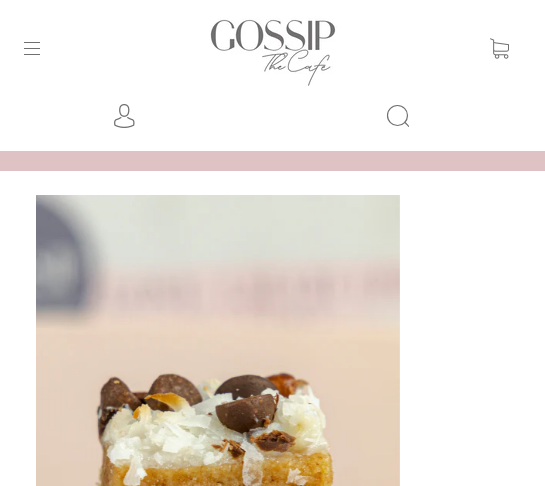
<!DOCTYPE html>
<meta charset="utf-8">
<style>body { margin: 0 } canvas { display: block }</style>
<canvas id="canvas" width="545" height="486"></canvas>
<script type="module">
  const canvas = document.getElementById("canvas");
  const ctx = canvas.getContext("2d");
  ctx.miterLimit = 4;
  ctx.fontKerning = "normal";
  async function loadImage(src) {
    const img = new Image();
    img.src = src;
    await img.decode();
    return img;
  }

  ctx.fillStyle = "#ffffff";
  ctx.fillRect(0, 0, 545, 486);
  ctx.fillStyle = "#707070";
  ctx.fillRect(24, 42, 16, 1);
  ctx.fillRect(24, 48, 16, 1);
  ctx.fillRect(24, 54, 16, 1);
  ctx.drawImage(await loadImage("img1.png"), 210, 18, 127, 68);
  ctx.drawImage(await loadImage("img2.png"), 490, 38, 19, 21);
  ctx.drawImage(await loadImage("img3.png"), 114, 104, 21, 24);
  ctx.beginPath();
  ctx.arc(397.5, 115.5, 10, 0, Math.PI * 2);
  ctx.strokeStyle = "#707070";
  ctx.lineWidth = 1.2;
  ctx.stroke();
  ctx.save();
  ctx.beginPath();
  ctx.rect(387, 105, 22, 22);
  ctx.clip();
  ctx.beginPath();
  ctx.moveTo(404.5, 122);
  ctx.lineTo(411.5, 129);
  ctx.stroke();
  ctx.restore();
  ctx.fillStyle = "#dfc2c3";
  ctx.fillRect(0, 151, 545, 20);
  ctx.drawImage(await loadImage("img4.png"), 36, 195, 364, 291);
</script>
